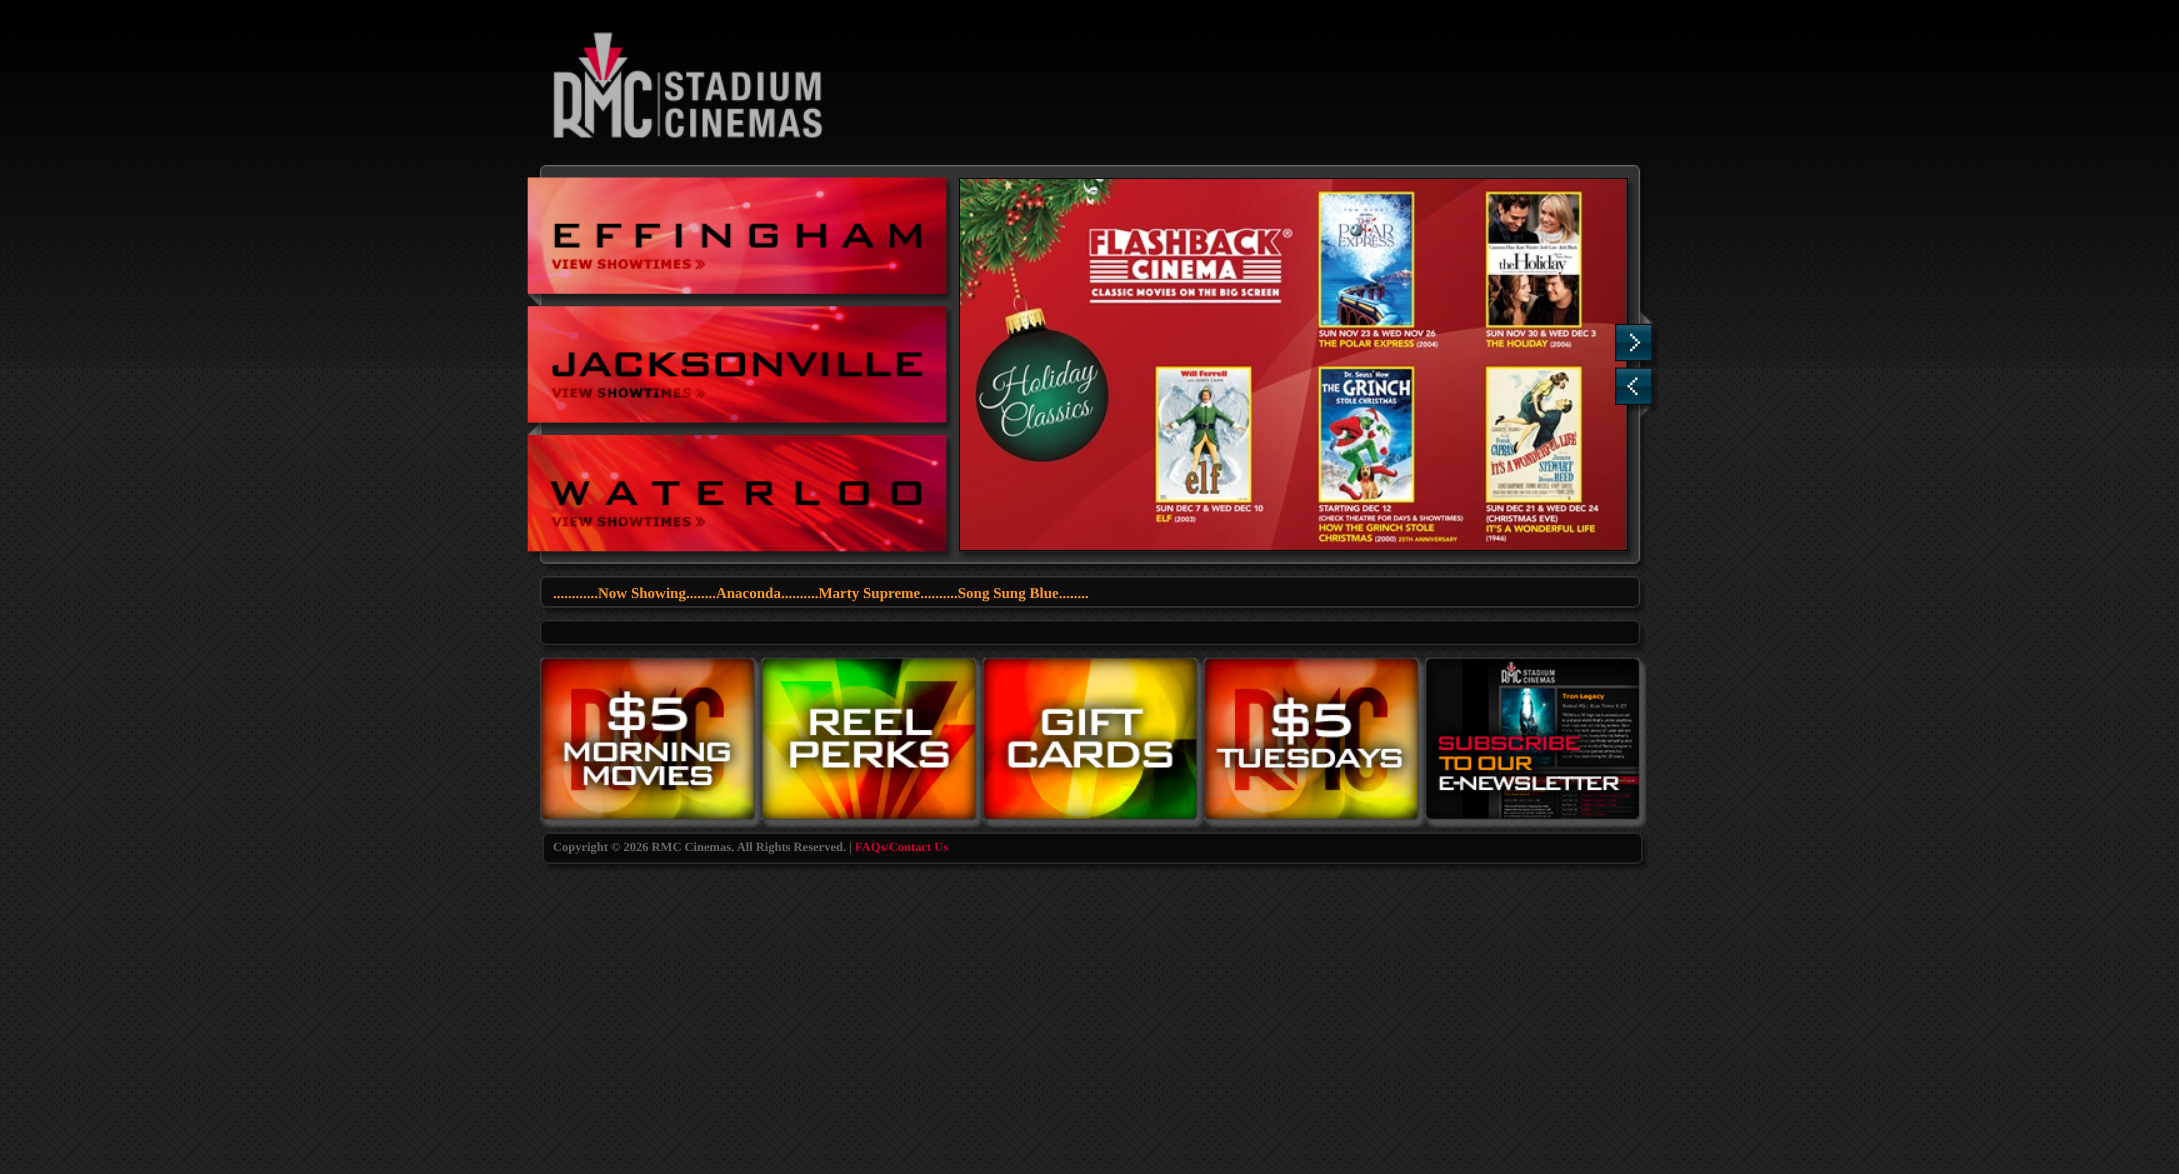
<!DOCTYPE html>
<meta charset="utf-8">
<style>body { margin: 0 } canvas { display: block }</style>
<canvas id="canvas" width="2179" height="1174"></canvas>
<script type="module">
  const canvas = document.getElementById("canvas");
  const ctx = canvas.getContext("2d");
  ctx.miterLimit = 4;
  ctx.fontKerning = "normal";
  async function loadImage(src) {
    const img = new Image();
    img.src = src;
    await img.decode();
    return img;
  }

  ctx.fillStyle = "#ffffff";
  ctx.fillRect(0, 0, 2179, 1174);
  ctx.drawImage(await loadImage("img1.png"), 0, 4, 2179, 1170);
  ctx.drawImage(await loadImage("img2.png"), 0, 0, 2179, 368);
  ctx.drawImage(await loadImage("img3.png"), 553, 32, 270, 106);
  ctx.drawImage(await loadImage("img4.png"), 527, 165, 1131, 406);
  ctx.drawImage(await loadImage("img5.png"), 527, 177, 420, 117);
  ctx.drawImage(await loadImage("img6.png"), 527, 306, 420, 117);
  ctx.drawImage(await loadImage("img7.png"), 527, 435, 420, 117);
  ctx.strokeStyle = "#000000";
  ctx.strokeRect(959.5, 178.5, 668, 372);
  ctx.drawImage(await loadImage("img8.png"), 960, 178, 667, 372);
  ctx.drawImage(await loadImage("img9.png"), 1615, 323, 38, 39);
  ctx.drawImage(await loadImage("img10.png"), 1615, 367, 38, 38);
  ctx.drawImage(await loadImage("img11.png"), 540, 576, 1106, 39);
  ctx.font = "bold 15px Liberation Serif";
  ctx.fillStyle = "#f5962a";
  ctx.fillText("............Now Showing........Anaconda..........Marty Supreme..........Song Sung Blue........", 553, 598);
  ctx.drawImage(await loadImage("img13.png"), 540, 632, 1106, 20);
  ctx.drawImage(await loadImage("img12.png"), 540, 620, 1105, 13);
  ctx.drawImage(await loadImage("img14.png"), 540, 657, 222, 171);
  ctx.drawImage(await loadImage("img15.png"), 761, 657, 222, 171);
  ctx.drawImage(await loadImage("img16.png"), 982, 657, 222, 171);
  ctx.drawImage(await loadImage("img17.png"), 1203, 657, 222, 171);
  ctx.drawImage(await loadImage("img18.png"), 1425, 657, 222, 171);
  ctx.drawImage(await loadImage("img19.png"), 542, 832, 1106, 39);
  ctx.font = "bold 12.5px Liberation Serif";
  ctx.fillStyle = "#666666";
  ctx.fillText("Copyright © 2026 RMC Cinemas. All Rights Reserved. |", 553, 851);
  ctx.fillStyle = "#cc0033";
  ctx.fillText("FAQs/Contact Us", 855, 851);
</script>
